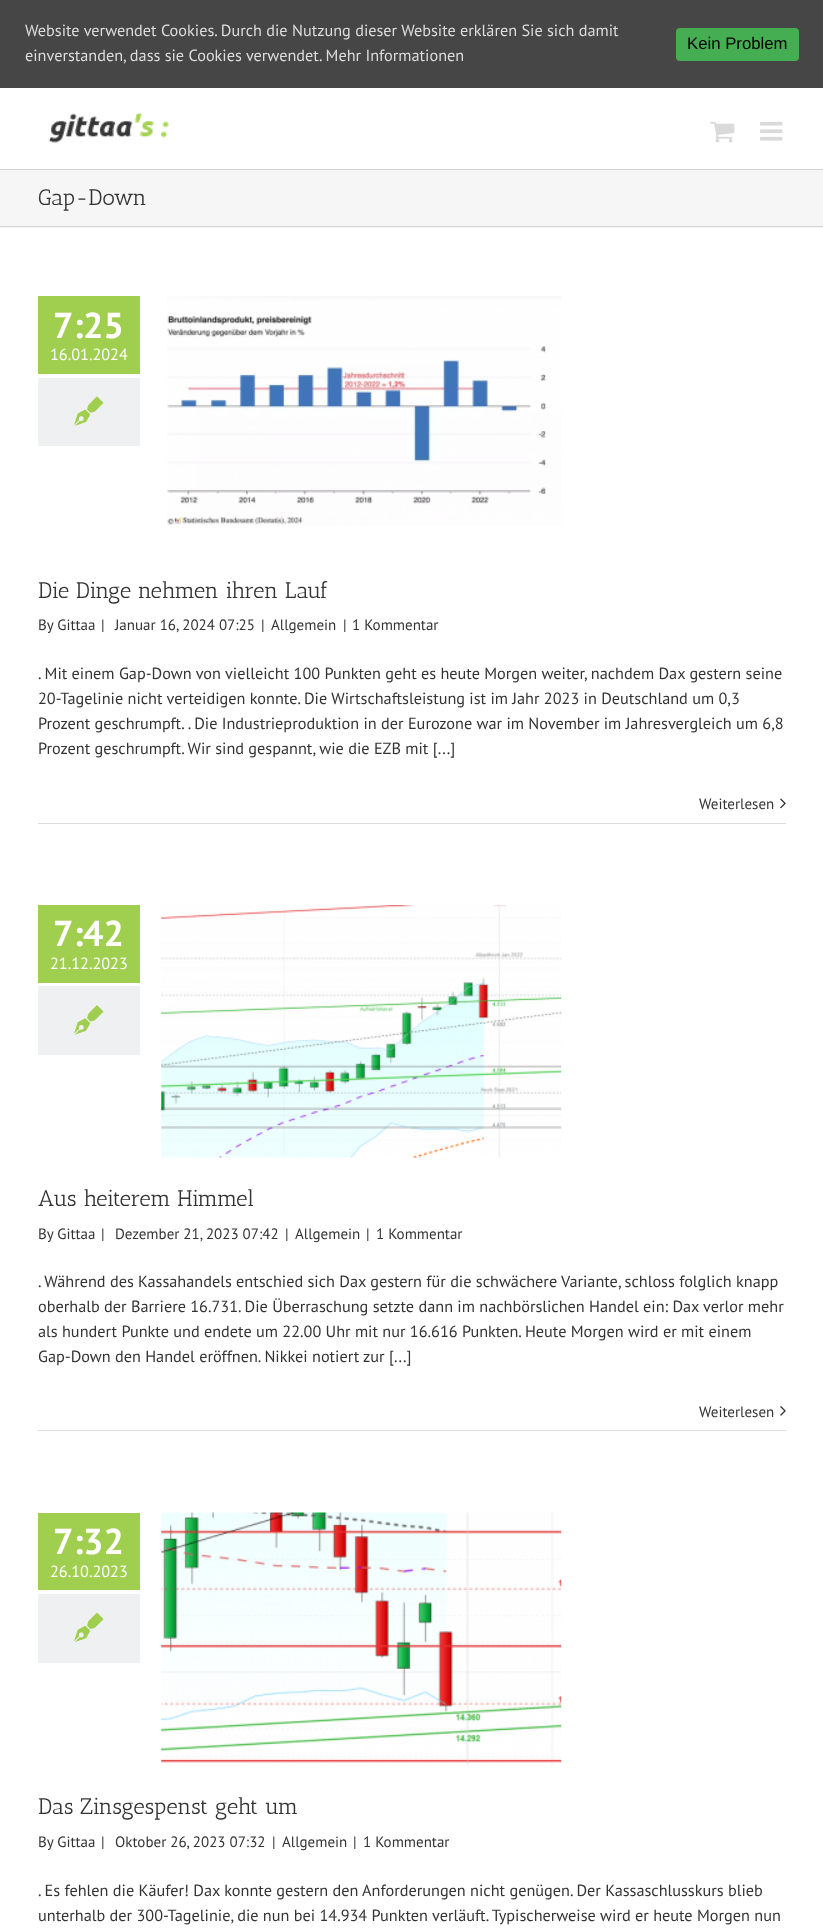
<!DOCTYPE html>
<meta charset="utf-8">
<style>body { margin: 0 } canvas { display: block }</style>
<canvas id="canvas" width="823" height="1932"></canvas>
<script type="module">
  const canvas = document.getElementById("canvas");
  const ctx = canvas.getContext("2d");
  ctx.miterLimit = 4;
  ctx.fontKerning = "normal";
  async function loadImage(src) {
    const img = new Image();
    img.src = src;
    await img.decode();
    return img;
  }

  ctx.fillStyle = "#ffffff";
  ctx.fillRect(0, 0, 823, 1932);
  ctx.fillStyle = "#464646";
  ctx.fillRect(0, 0, 823, 88);
  ctx.font = "16.25px PT Sans";
  ctx.fillStyle = "#dddddd";
  ctx.fillText("Website verwendet Cookies. Durch die Nutzung dieser Website erklären Sie sich damit", 25, 36);
  ctx.fillText("einverstanden, dass sie Cookies verwendet. Mehr Informationen", 25, 61);
  ctx.fillStyle = "#45ae52";
  ctx.beginPath();
  ctx.roundRect(676, 28, 123, 33, 4);
  ctx.fill();
  ctx.font = "16.75px Liberation Sans";
  ctx.fillStyle = "#000000";
  ctx.fillText("Kein Problem", 687, 49);
  ctx.drawImage(await loadImage("img1.png"), 48, 112, 121, 31);
  ctx.drawImage(await loadImage("img2.png"), 710, 121, 25, 22);
  ctx.drawImage(await loadImage("img3.png"), 760, 121, 23, 20);
  ctx.fillStyle = "#f6f6f6";
  ctx.fillRect(0, 170, 823, 58);
  ctx.fillStyle = "#d2d3d4";
  ctx.fillRect(0, 169, 823, 1);
  ctx.fillRect(0, 226, 823, 1);
  ctx.font = "22.5px Antic Slab";
  ctx.fillStyle = "#333333";
  ctx.fillText("Gap-Down", 38, 205);
  ctx.fillStyle = "#a0ce4e";
  ctx.fillRect(38, 296, 102, 78);
  ctx.font = "bold 36px PT Sans";
  ctx.fillStyle = "#ffffff";
  ctx.fillText("7:25", 53, 338);
  ctx.font = "16.25px PT Sans";
  ctx.fillText("16.01.2024", 50, 360);
  ctx.fillStyle = "#eef0f2";
  ctx.fillRect(38, 378, 102, 68);
  ctx.drawImage(await loadImage("img4.png"), 74, 396, 30, 30);
  ctx.drawImage(await loadImage("img5.png"), 167, 296, 394, 230);
  ctx.font = "22.5px Antic Slab";
  ctx.fillStyle = "#333333";
  ctx.fillText("Die Dinge nehmen ihren Lauf", 38, 598);
  ctx.font = "15px PT Sans";
  ctx.fillText("By Gittaa", 38, 630);
  ctx.fillText("|", 101, 630);
  ctx.fillText("Januar 16, 2024 07:25", 115, 630);
  ctx.fillText("|", 261, 630);
  ctx.fillText("Allgemein", 271, 630);
  ctx.fillText("|", 343, 630);
  ctx.fillText("1 Kommentar", 352, 630);
  ctx.font = "16.25px PT Sans";
  ctx.fillText(". Mit einem Gap-Down von vielleicht 100 Punkten geht es heute Morgen weiter, nachdem Dax gestern seine", 38, 679);
  ctx.fillText("20-Tagelinie nicht verteidigen konnte. Die Wirtschaftsleistung ist im Jahr 2023 in Deutschland um 0,3", 38, 704);
  ctx.fillText("Prozent geschrumpft. . Die Industrieproduktion in der Eurozone war im November im Jahresvergleich um 6,8", 38, 729);
  ctx.fillText("Prozent geschrumpft. Wir sind gespannt, wie die EZB mit [...]", 38, 754);
  ctx.fillStyle = "#e0dede";
  ctx.fillRect(38, 823, 748, 1);
  ctx.font = "15px PT Sans";
  ctx.fillStyle = "#333333";
  ctx.fillText("Weiterlesen", 699, 809);
  ctx.drawImage(await loadImage("img6.png"), 780, 798, 6, 11);
  ctx.fillStyle = "#a0ce4e";
  ctx.fillRect(38, 905, 102, 78);
  ctx.font = "bold 36px PT Sans";
  ctx.fillStyle = "#ffffff";
  ctx.fillText("7:42", 53, 946);
  ctx.font = "16.25px PT Sans";
  ctx.fillText("21.12.2023", 50, 969);
  ctx.fillStyle = "#eef0f2";
  ctx.fillRect(38, 986, 102, 69);
  ctx.drawImage(await loadImage("img7.png"), 74, 1005, 30, 30);
  ctx.drawImage(await loadImage("img8.png"), 161, 905, 401, 253);
  ctx.font = "22.5px Antic Slab";
  ctx.fillStyle = "#333333";
  ctx.fillText("Aus heiterem Himmel", 38, 1206);
  ctx.font = "15px PT Sans";
  ctx.fillText("By Gittaa", 38, 1239);
  ctx.fillText("|", 101, 1239);
  ctx.fillText("Dezember 21, 2023 07:42", 115, 1239);
  ctx.fillText("|", 285, 1239);
  ctx.fillText("Allgemein", 295, 1239);
  ctx.fillText("|", 366, 1239);
  ctx.fillText("1 Kommentar", 376, 1239);
  ctx.font = "16.25px PT Sans";
  ctx.fillText(". Während des Kassahandels entschied sich Dax gestern für die schwächere Variante, schloss folglich knapp", 38, 1287);
  ctx.fillText("oberhalb der Barriere 16.731. Die Überraschung setzte dann im nachbörslichen Handel ein: Dax verlor mehr", 38, 1312);
  ctx.fillText("als hundert Punkte und endete um 22.00 Uhr mit nur 16.616 Punkten. Heute Morgen wird er mit einem", 38, 1337);
  ctx.fillText("Gap-Down den Handel eröffnen. Nikkei notiert zur [...]", 38, 1362);
  ctx.fillStyle = "#e0dede";
  ctx.fillRect(38, 1430, 748, 1);
  ctx.font = "15px PT Sans";
  ctx.fillStyle = "#333333";
  ctx.fillText("Weiterlesen", 699, 1417);
  ctx.drawImage(await loadImage("img9.png"), 780, 1406, 6, 10);
  ctx.fillStyle = "#a0ce4e";
  ctx.fillRect(38, 1513, 102, 77);
  ctx.font = "bold 36px PT Sans";
  ctx.fillStyle = "#ffffff";
  ctx.fillText("7:32", 53, 1554);
  ctx.font = "16.25px PT Sans";
  ctx.fillText("26.10.2023", 50, 1577);
  ctx.fillStyle = "#eef0f2";
  ctx.fillRect(38, 1594, 102, 69);
  ctx.drawImage(await loadImage("img10.png"), 74, 1612, 30, 30);
  ctx.drawImage(await loadImage("img11.png"), 161, 1512, 401, 253);
  ctx.font = "22.5px Antic Slab";
  ctx.fillStyle = "#333333";
  ctx.fillText("Das Zinsgespenst geht um", 38, 1814);
  ctx.font = "15px PT Sans";
  ctx.fillText("By Gittaa", 38, 1847);
  ctx.fillText("|", 101, 1847);
  ctx.fillText("Oktober 26, 2023 07:32", 115, 1847);
  ctx.fillText("|", 272, 1847);
  ctx.fillText("Allgemein", 282, 1847);
  ctx.fillText("|", 353, 1847);
  ctx.fillText("1 Kommentar", 363, 1847);
  ctx.font = "16.25px PT Sans";
  ctx.fillText(". Es fehlen die Käufer! Dax konnte gestern den Anforderungen nicht genügen. Der Kassaschlusskurs blieb", 38, 1896);
  ctx.fillText("unterhalb der 300-Tagelinie, die nun bei 14.934 Punkten verläuft. Typischerweise wird er heute Morgen nun", 38, 1921);
</script>
